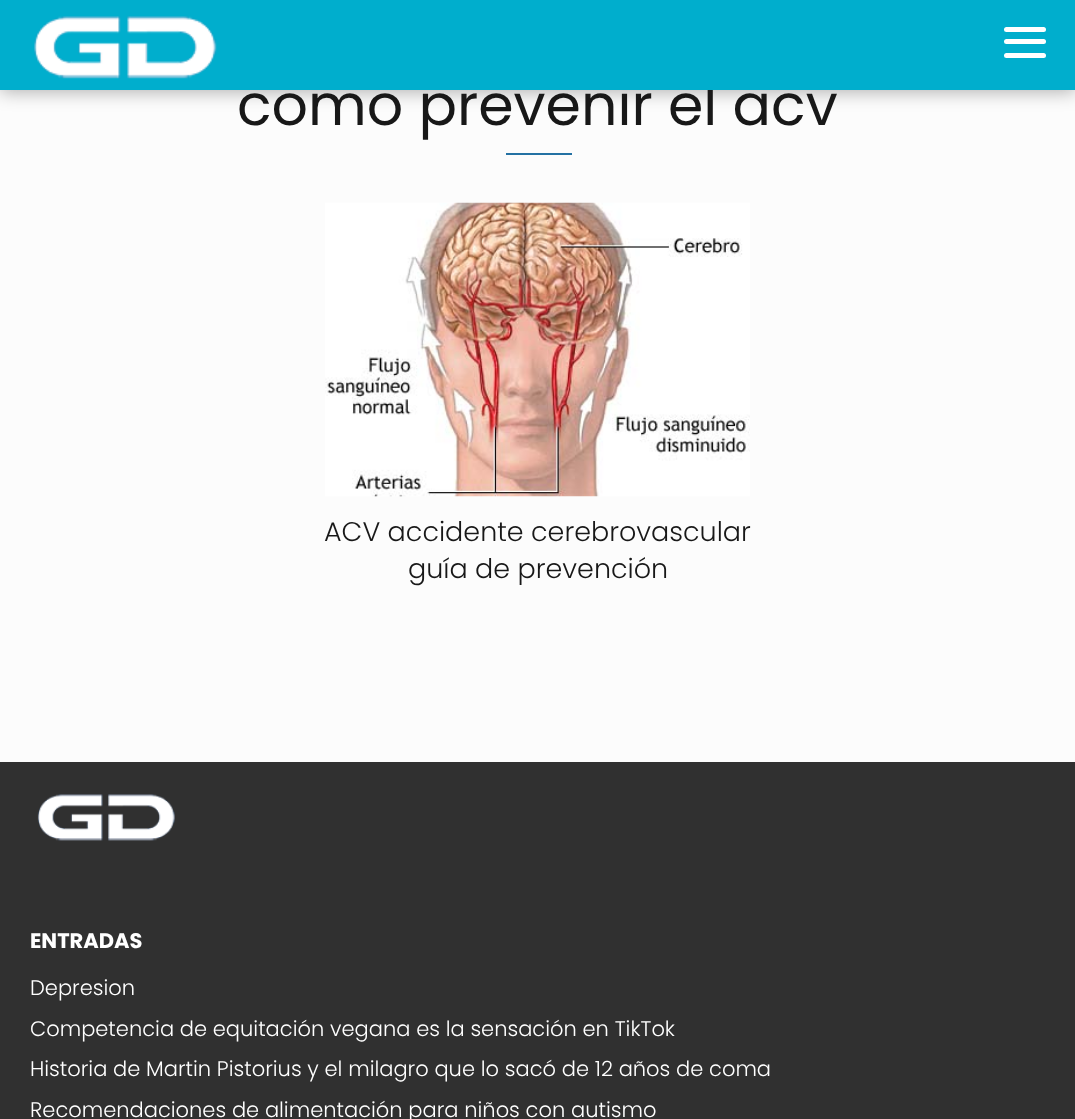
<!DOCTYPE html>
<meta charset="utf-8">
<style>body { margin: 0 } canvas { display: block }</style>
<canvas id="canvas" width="1075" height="1119"></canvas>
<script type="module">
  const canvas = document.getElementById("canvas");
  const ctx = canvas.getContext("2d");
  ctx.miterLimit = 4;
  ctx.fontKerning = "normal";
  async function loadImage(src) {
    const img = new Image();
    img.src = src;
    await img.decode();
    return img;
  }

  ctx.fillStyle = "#fcfcfc";
  ctx.fillRect(0, 0, 1075, 1119);
  ctx.fillStyle = "rgba(0, 0, 0, 0.3)";
  ctx.filter = "blur(9px)";
  ctx.beginPath();
  ctx.rect(0, 2, 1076, 90);
  ctx.fill();
  ctx.filter = "none";
  ctx.font = "57px Poppins";
  ctx.fillStyle = "#181818";
  ctx.fillText("como prevenir el acv", 237, 125);
  ctx.fillStyle = "#00aecd";
  ctx.fillRect(0, 0, 1075, 90);
  ctx.drawImage(await loadImage("img1.png"), 34, 16, 183, 63);
  ctx.fillStyle = "#ffffff";
  ctx.beginPath();
  ctx.roundRect(1004, 27, 42, 5, 2.5);
  ctx.fill();
  ctx.beginPath();
  ctx.roundRect(1004, 39, 42, 5, 2.5);
  ctx.fill();
  ctx.beginPath();
  ctx.roundRect(1004, 53, 42, 5, 2.5);
  ctx.fill();
  ctx.fillStyle = "#2471a3";
  ctx.fillRect(506, 153, 66, 2);
  ctx.drawImage(await loadImage("img2.png"), 325, 202, 425, 295);
  ctx.font = "300 27px Poppins";
  ctx.fillStyle = "#181818";
  ctx.fillText("ACV accidente cerebrovascular", 324, 541);
  ctx.fillText("guía de prevención", 408, 578);
  ctx.fillStyle = "#303030";
  ctx.fillRect(0, 762, 1075, 357);
  ctx.drawImage(await loadImage("img3.png"), 37, 794, 138, 47);
  ctx.font = "bold 21px Poppins";
  ctx.fillStyle = "#ffffff";
  ctx.fillText("ENTRADAS", 30, 948);
  ctx.font = "300 21px Poppins";
  ctx.fillText("Depresion", 30, 995);
  ctx.fillText("Competencia de equitación vegana es la sensación en TikTok", 30, 1036);
  ctx.fillText("Historia de Martin Pistorius y el milagro que lo sacó de 12 años de coma", 30, 1076);
  ctx.fillText("Recomendaciones de alimentación para niños con autismo", 30, 1117);
</script>
